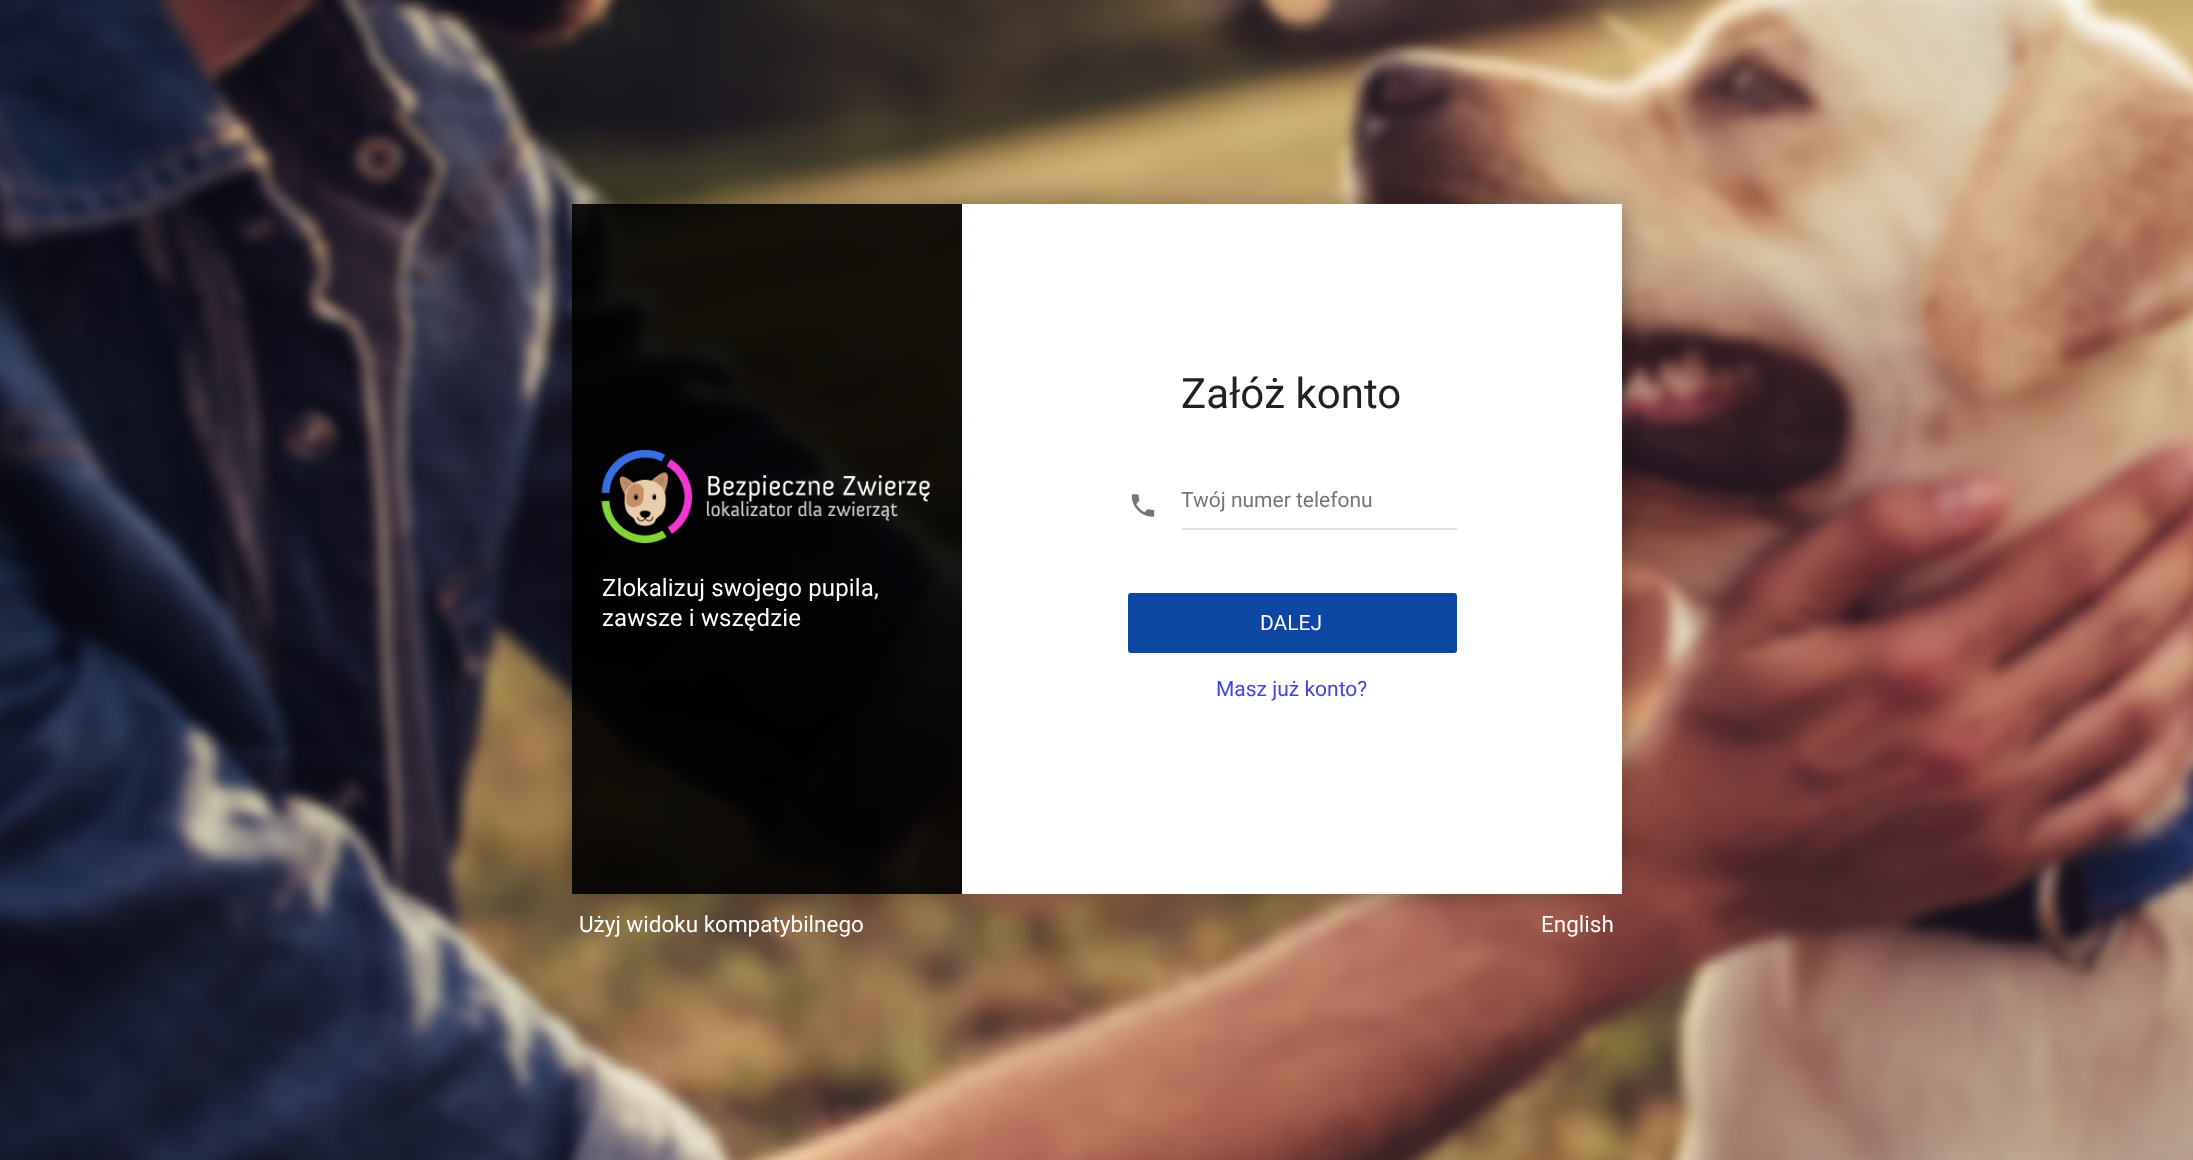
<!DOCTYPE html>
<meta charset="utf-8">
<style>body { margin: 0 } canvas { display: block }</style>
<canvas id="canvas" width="2193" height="1160"></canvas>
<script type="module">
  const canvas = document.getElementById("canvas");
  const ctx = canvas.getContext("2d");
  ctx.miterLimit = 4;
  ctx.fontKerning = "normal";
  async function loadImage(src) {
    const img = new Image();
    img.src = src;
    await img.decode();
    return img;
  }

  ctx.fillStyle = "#ffffff";
  ctx.fillRect(0, 0, 2193, 1160);
  ctx.drawImage(await loadImage("img1.png"), 0, 0, 2193, 1160);
  ctx.save();
  ctx.beginPath();
  ctx.moveTo(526, 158);
  ctx.lineTo(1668, 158);
  ctx.lineTo(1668, 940);
  ctx.lineTo(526, 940);
  ctx.closePath();
  ctx.moveTo(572, 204);
  ctx.lineTo(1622, 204);
  ctx.lineTo(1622, 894);
  ctx.lineTo(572, 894);
  ctx.closePath();
  ctx.clip("evenodd");
  ctx.fillStyle = "rgba(0, 0, 0, 0.35)";
  ctx.filter = "blur(15px)";
  ctx.beginPath();
  ctx.rect(572, 204, 1050, 690);
  ctx.fill();
  ctx.filter = "none";
  ctx.restore();
  ctx.fillStyle = "rgba(0, 0, 0, 0.9)";
  ctx.fillRect(572, 204, 390, 690);
  ctx.drawImage(await loadImage("img2.png"), 601, 450, 329, 93);
  ctx.letterSpacing = "0.15px";
  ctx.font = "24px Roboto";
  ctx.fillStyle = "#ffffff";
  ctx.fillText("Zlokalizuj swojego pupila,", 602, 596);
  ctx.fillText("zawsze i wszędzie", 602, 626);
  ctx.fillRect(962, 204, 660, 690);
  ctx.letterSpacing = "0px";
  ctx.font = "42px Roboto";
  ctx.fillStyle = "#212121";
  ctx.fillText("Załóż konto", 1181, 408);
  ctx.font = "21px Roboto";
  ctx.fillStyle = "#757575";
  ctx.fillText("Twój numer telefonu", 1181, 507);
  ctx.drawImage(await loadImage("img3.png"), 1131, 494, 24, 23);
  ctx.fillStyle = "#e0e0e0";
  ctx.fillRect(1182, 528, 275, 2);
  ctx.fillStyle = "#0d47a1";
  ctx.beginPath();
  ctx.roundRect(1128, 593, 329, 60, 3);
  ctx.fill();
  ctx.fillStyle = "#ffffff";
  ctx.fillText("DALEJ", 1260, 630);
  ctx.fillStyle = "#4444dd";
  ctx.fillText("Masz już konto?", 1216, 696);
  ctx.font = "22.5px Roboto";
  ctx.fillStyle = "#ffffff";
  ctx.fillText("Użyj widoku kompatybilnego", 579, 932);
  ctx.fillText("English", 1541, 932);
</script>
